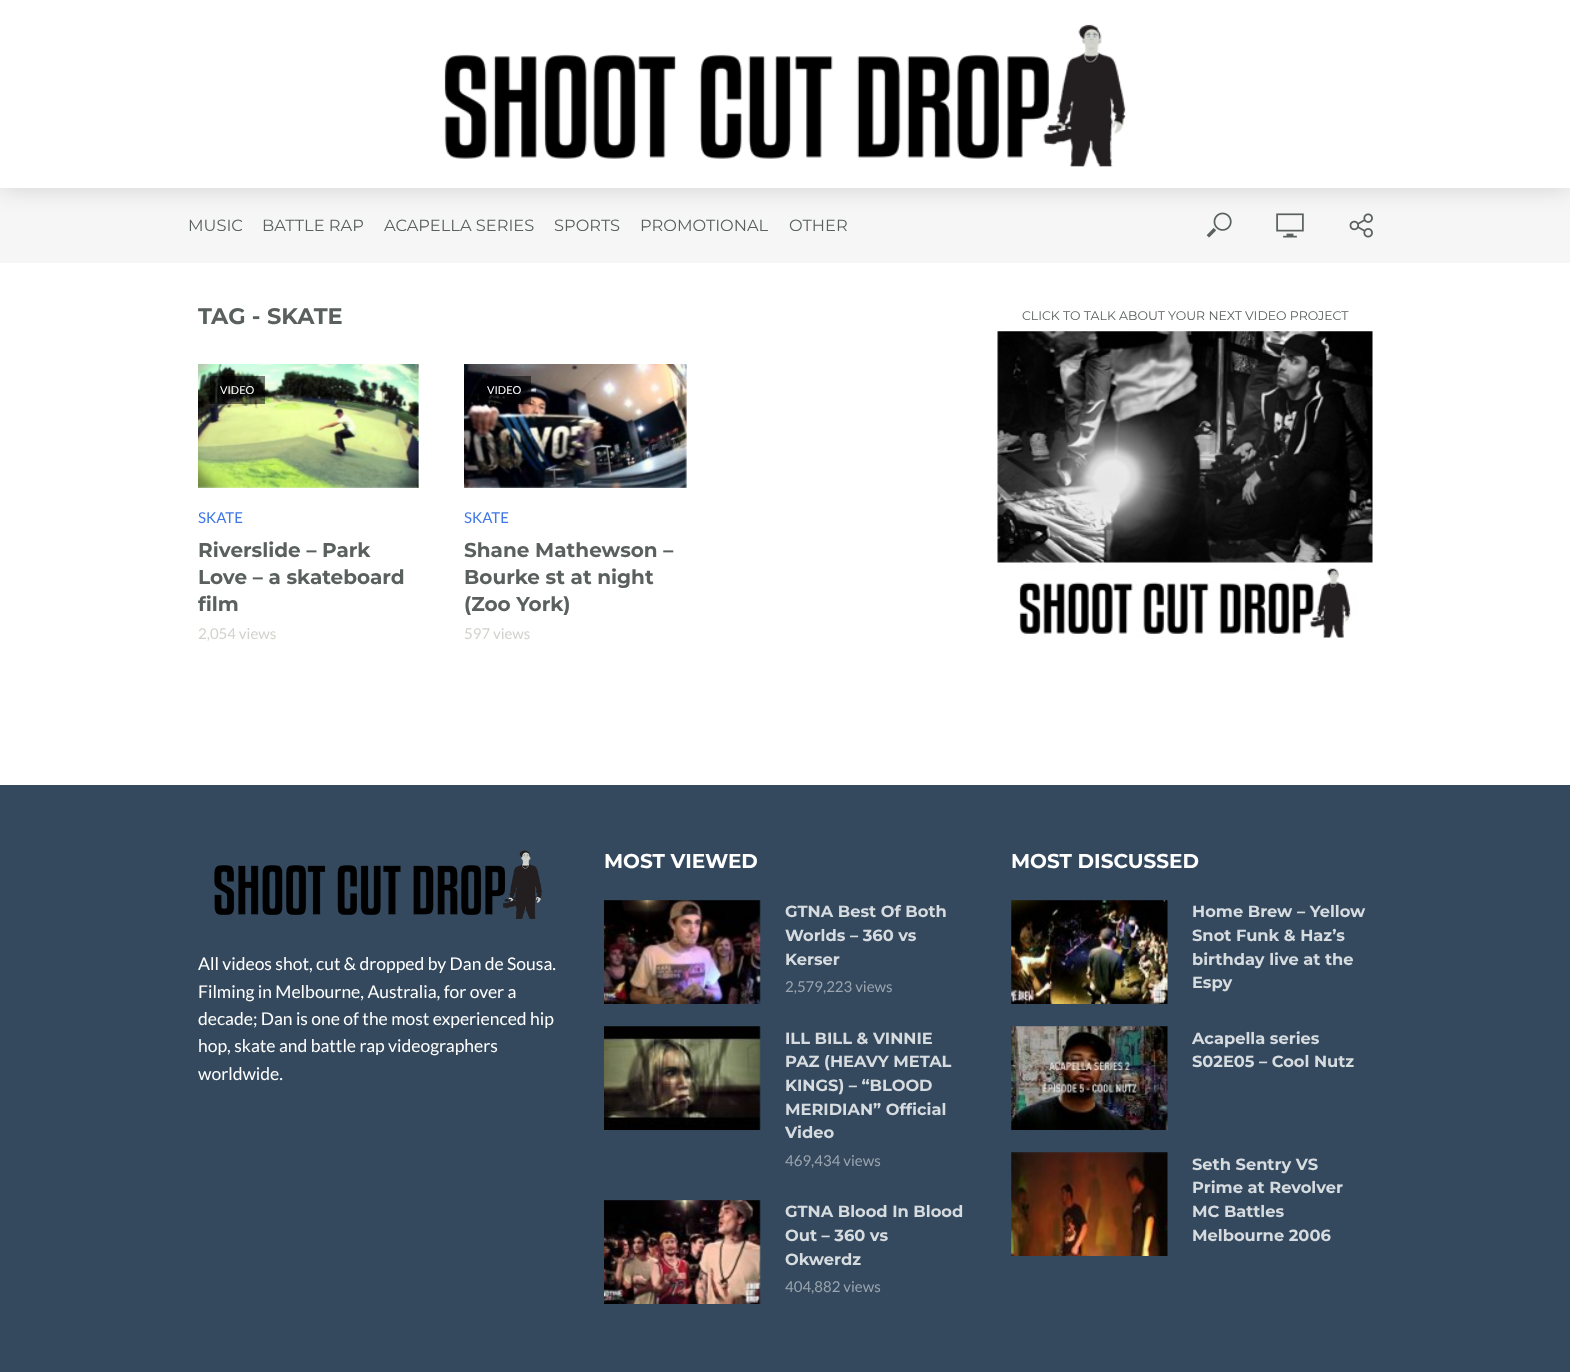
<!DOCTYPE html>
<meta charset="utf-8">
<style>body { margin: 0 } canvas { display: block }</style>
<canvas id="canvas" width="1570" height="1372"></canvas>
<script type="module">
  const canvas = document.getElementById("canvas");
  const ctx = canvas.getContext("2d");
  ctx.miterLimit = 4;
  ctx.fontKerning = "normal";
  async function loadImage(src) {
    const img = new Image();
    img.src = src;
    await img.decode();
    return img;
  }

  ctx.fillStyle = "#ffffff";
  ctx.fillRect(0, 0, 1570, 1372);
  ctx.fillStyle = "#f6f6f6";
  ctx.fillRect(0, 188, 1570, 75);
  ctx.drawImage(await loadImage("img2.png"), 1206, 212, 26, 26);
  ctx.drawImage(await loadImage("img3.png"), 1276, 213, 28, 25);
  ctx.drawImage(await loadImage("img4.png"), 1349, 213, 24, 25);
  ctx.fillStyle = "rgba(0, 0, 0, 0.15)";
  ctx.filter = "blur(12.5px)";
  ctx.beginPath();
  ctx.rect(0, 0, 1570, 188);
  ctx.fill();
  ctx.filter = "none";
  ctx.fillStyle = "#ffffff";
  ctx.fillRect(0, 0, 1570, 188);
  ctx.drawImage(await loadImage("img1.png"), 444, 24, 682, 143);
  ctx.font = "16.25px Montserrat";
  ctx.fillStyle = "#59605e";
  ctx.fillText("MUSIC", 188, 231);
  ctx.fillText("BATTLE RAP", 262, 231);
  ctx.fillText("ACAPELLA SERIES", 384, 231);
  ctx.fillText("SPORTS", 554, 231);
  ctx.fillText("PROMOTIONAL", 640, 231);
  ctx.fillText("OTHER", 789, 231);
  ctx.font = "bold 22.5px Montserrat";
  ctx.fillText("TAG - SKATE", 198, 324);
  ctx.drawImage(await loadImage("img5.png"), 198, 364, 221, 124);
  ctx.fillStyle = "rgba(0, 0, 0, 0.5)";
  ctx.fillRect(210, 376, 55, 28);
  ctx.font = "11px Lato";
  ctx.fillStyle = "#ffffff";
  ctx.fillText("VIDEO", 220, 394);
  ctx.font = "15px Lato";
  ctx.fillStyle = "#3f78e6";
  ctx.fillText("SKATE", 198, 523);
  ctx.font = "bold 20px Montserrat";
  ctx.fillStyle = "#59605e";
  ctx.fillText("Riverslide – Park", 198, 557);
  ctx.fillText("Love – a skateboard", 198, 584);
  ctx.fillText("film", 198, 611);
  ctx.font = "15px Lato";
  ctx.fillStyle = "#d2d3cc";
  ctx.fillText("2,054 views", 198, 639);
  ctx.drawImage(await loadImage("img6.png"), 464, 364, 223, 124);
  ctx.fillStyle = "rgba(0, 0, 0, 0.5)";
  ctx.fillRect(476, 376, 55, 28);
  ctx.font = "11px Lato";
  ctx.fillStyle = "#ffffff";
  ctx.fillText("VIDEO", 487, 394);
  ctx.font = "15px Lato";
  ctx.fillStyle = "#3f78e6";
  ctx.fillText("SKATE", 464, 523);
  ctx.font = "bold 20px Montserrat";
  ctx.fillStyle = "#59605e";
  ctx.fillText("Shane Mathewson –", 464, 557);
  ctx.fillText("Bourke st at night", 464, 584);
  ctx.fillText("(Zoo York)", 464, 611);
  ctx.font = "15px Lato";
  ctx.fillStyle = "#d2d3cc";
  ctx.fillText("597 views", 464, 639);
  ctx.font = "12.5px Montserrat";
  ctx.fillStyle = "#59605e";
  ctx.fillText("CLICK TO TALK ABOUT YOUR NEXT VIDEO PROJECT", 1022, 320);
  ctx.drawImage(await loadImage("img7.png"), 997, 331, 376, 307);
  ctx.fillStyle = "#34495e";
  ctx.fillRect(0, 785, 1570, 587);
  ctx.drawImage(await loadImage("img8.png"), 214, 850, 328, 69);
  ctx.font = "17.5px Lato";
  ctx.fillStyle = "#ffffff";
  ctx.fillText("All videos shot, cut & dropped by Dan de Sousa.", 198, 970);
  ctx.fillText("Filming in Melbourne, Australia, for over a", 198, 998);
  ctx.fillText("decade; Dan is one of the most experienced hip", 198, 1025);
  ctx.fillText("hop, skate and battle rap videographers", 198, 1052);
  ctx.fillText("worldwide.", 198, 1080);
  ctx.font = "bold 20px Montserrat";
  ctx.fillText("MOST VIEWED", 604, 868);
  ctx.drawImage(await loadImage("img9.png"), 604, 900, 157, 104);
  ctx.font = "bold 16.25px Montserrat";
  ctx.fillStyle = "#d6dbdf";
  ctx.fillText("GTNA Best Of Both", 785, 917);
  ctx.fillText("Worlds – 360 vs", 785, 941);
  ctx.fillText("Kerser", 785, 965);
  ctx.font = "15px Lato";
  ctx.fillStyle = "#9aa4af";
  ctx.fillText("2,579,223 views", 785, 992);
  ctx.drawImage(await loadImage("img10.png"), 604, 1026, 157, 104);
  ctx.font = "bold 16.25px Montserrat";
  ctx.fillStyle = "#d6dbdf";
  ctx.fillText("ILL BILL & VINNIE", 785, 1044);
  ctx.fillText("PAZ (HEAVY METAL", 785, 1067);
  ctx.fillText("KINGS) – “BLOOD", 785, 1091);
  ctx.fillText("MERIDIAN” Official", 785, 1115);
  ctx.fillText("Video", 785, 1138);
  ctx.font = "15px Lato";
  ctx.fillStyle = "#9aa4af";
  ctx.fillText("469,434 views", 785, 1166);
  ctx.drawImage(await loadImage("img11.png"), 604, 1200, 157, 104);
  ctx.font = "bold 16.25px Montserrat";
  ctx.fillStyle = "#d6dbdf";
  ctx.fillText("GTNA Blood In Blood", 785, 1217);
  ctx.fillText("Out – 360 vs", 785, 1241);
  ctx.fillText("Okwerdz", 785, 1265);
  ctx.font = "15px Lato";
  ctx.fillStyle = "#9aa4af";
  ctx.fillText("404,882 views", 785, 1292);
  ctx.font = "bold 20px Montserrat";
  ctx.fillStyle = "#ffffff";
  ctx.fillText("MOST DISCUSSED", 1011, 868);
  ctx.drawImage(await loadImage("img12.png"), 1011, 900, 157, 104);
  ctx.font = "bold 16.25px Montserrat";
  ctx.fillStyle = "#d6dbdf";
  ctx.fillText("Home Brew – Yellow", 1192, 917);
  ctx.fillText("Snot Funk & Haz’s", 1192, 941);
  ctx.fillText("birthday live at the", 1192, 965);
  ctx.fillText("Espy", 1192, 988);
  ctx.drawImage(await loadImage("img13.png"), 1011, 1026, 157, 104);
  ctx.fillText("Acapella series", 1192, 1044);
  ctx.fillText("S02E05 – Cool Nutz", 1192, 1067);
  ctx.drawImage(await loadImage("img14.png"), 1011, 1152, 157, 104);
  ctx.fillText("Seth Sentry VS", 1192, 1170);
  ctx.fillText("Prime at Revolver", 1192, 1193);
  ctx.fillText("MC Battles", 1192, 1217);
  ctx.fillText("Melbourne 2006", 1192, 1241);
</script>
